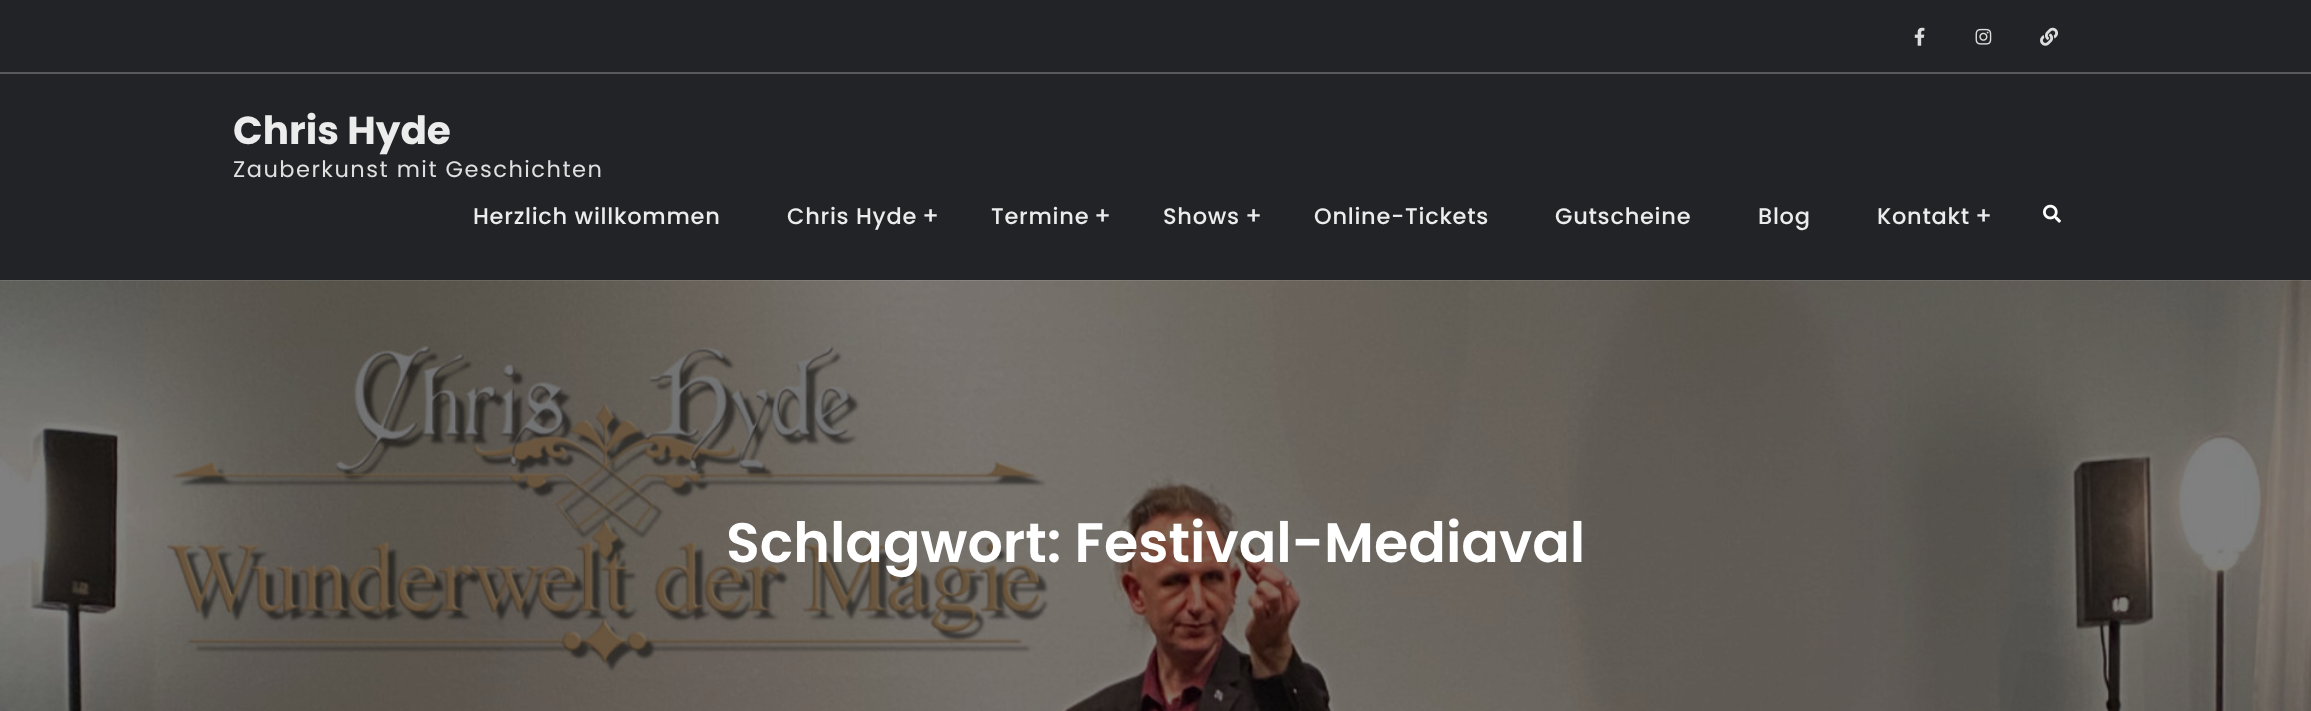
<!DOCTYPE html>
<meta charset="utf-8">
<style>body { margin: 0 } canvas { display: block }</style>
<canvas id="canvas" width="2311" height="711"></canvas>
<script type="module">
  const canvas = document.getElementById("canvas");
  const ctx = canvas.getContext("2d");
  ctx.miterLimit = 4;
  ctx.fontKerning = "normal";
  async function loadImage(src) {
    const img = new Image();
    img.src = src;
    await img.decode();
    return img;
  }

  ctx.fillStyle = "#212327";
  ctx.fillRect(0, 0, 2311, 711);
  ctx.fillStyle = "#58595c";
  ctx.fillRect(0, 72, 2311, 2);
  ctx.drawImage(await loadImage("img1.png"), 1914, 27, 11, 19);
  ctx.drawImage(await loadImage("img2.png"), 1975, 28, 17, 17);
  ctx.drawImage(await loadImage("img3.png"), 2040, 27, 18, 19);
  ctx.font = "bold 39px Poppins";
  ctx.fillStyle = "#ececec";
  ctx.fillText("Chris Hyde", 233, 144);
  ctx.letterSpacing = "1.5px";
  ctx.font = "22.5px Poppins";
  ctx.fillStyle = "#e0e0e0";
  ctx.fillText("Zauberkunst mit Geschichten", 233, 177);
  ctx.letterSpacing = "0.75px";
  ctx.font = "500 22.5px Poppins";
  ctx.fillStyle = "#ececec";
  ctx.fillText("Herzlich willkommen", 473, 224);
  ctx.fillText("Chris Hyde", 787, 224);
  ctx.font = "500 24px Poppins";
  ctx.fillText("+", 922, 224);
  ctx.font = "500 22.5px Poppins";
  ctx.fillText("Termine", 991, 224);
  ctx.font = "500 24px Poppins";
  ctx.fillText("+", 1094, 224);
  ctx.font = "500 22.5px Poppins";
  ctx.fillText("Shows", 1163, 224);
  ctx.font = "500 24px Poppins";
  ctx.fillText("+", 1245, 224);
  ctx.font = "500 22.5px Poppins";
  ctx.fillText("Online-Tickets", 1314, 224);
  ctx.fillText("Gutscheine", 1555, 224);
  ctx.fillText("Blog", 1758, 224);
  ctx.fillText("Kontakt", 1877, 224);
  ctx.font = "500 24px Poppins";
  ctx.fillText("+", 1975, 224);
  ctx.drawImage(await loadImage("img4.png"), 2043, 204, 18, 19);
  ctx.drawImage(await loadImage("img5.png"), 0, 280, 2311, 431);
  ctx.letterSpacing = "0px";
  ctx.font = "600 55.5px Poppins";
  ctx.fillStyle = "#ffffff";
  ctx.fillText("Schlagwort: Festival-Mediaval", 726, 562);
</script>
